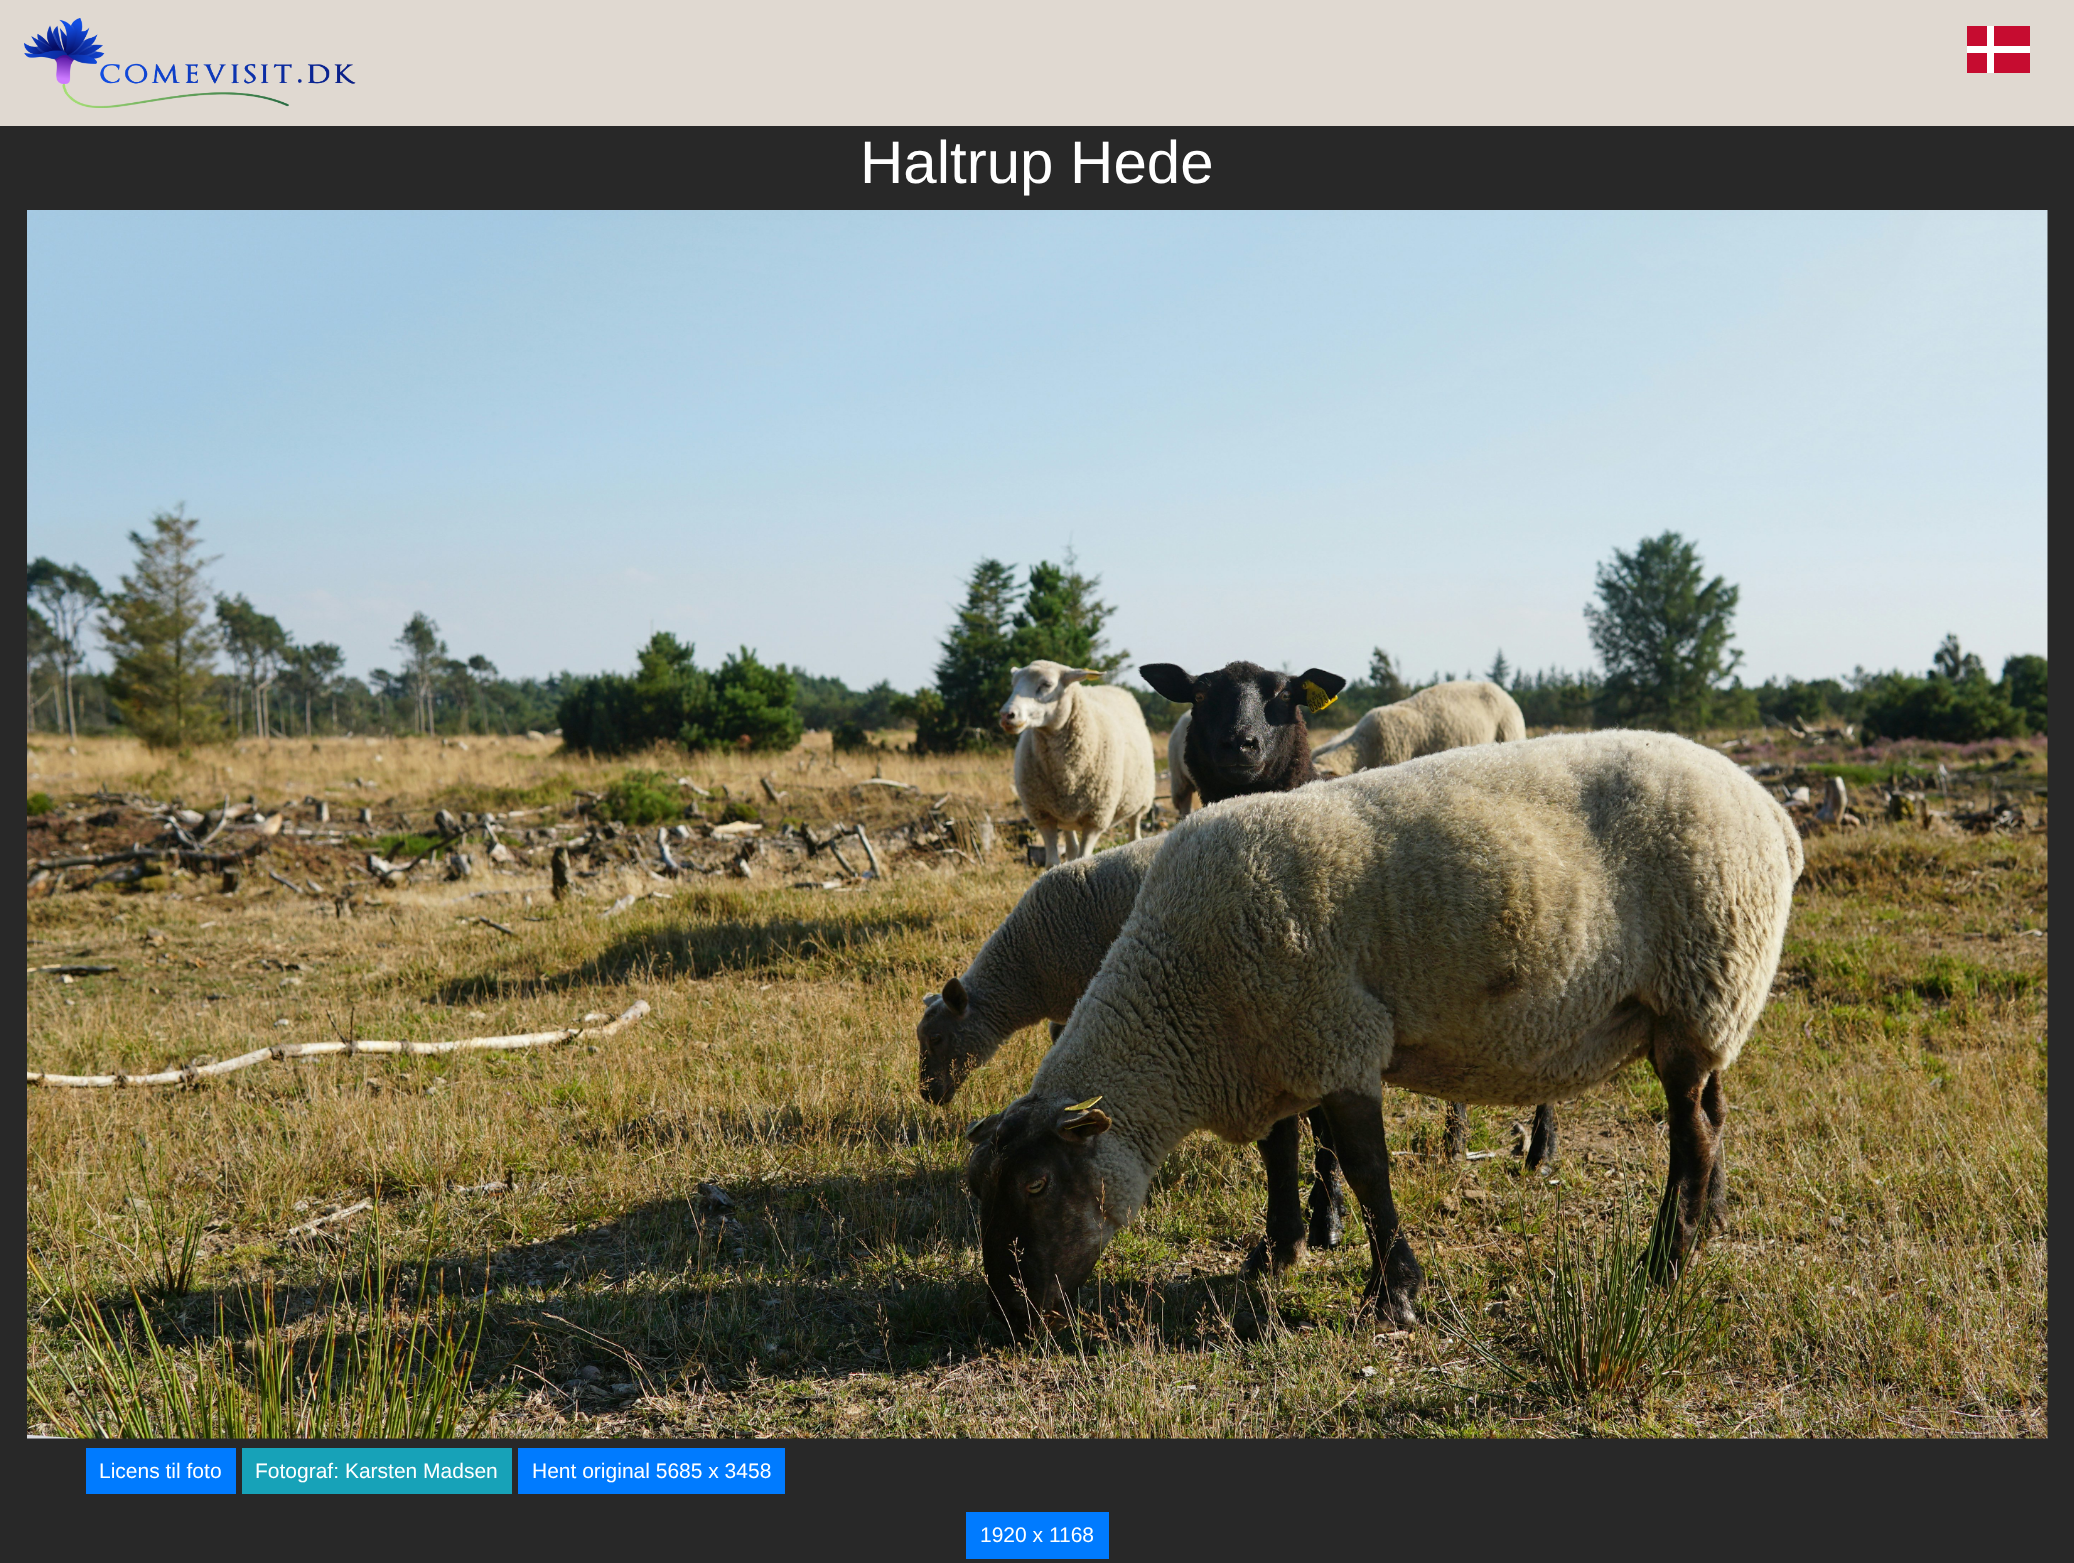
<!DOCTYPE html>
<meta charset="utf-8">
<style>body { margin: 0 } canvas { display: block }</style>
<canvas id="canvas" width="2074" height="1563"></canvas>
<script type="module">
  const canvas = document.getElementById("canvas");
  const ctx = canvas.getContext("2d");
  ctx.miterLimit = 4;
  ctx.fontKerning = "normal";
  async function loadImage(src) {
    const img = new Image();
    img.src = src;
    await img.decode();
    return img;
  }

  ctx.fillStyle = "#282828";
  ctx.fillRect(0, 0, 2074, 1563);
  ctx.fillStyle = "#e0d9d1";
  ctx.fillRect(0, 0, 2074, 126);
  ctx.drawImage(await loadImage("img1.png"), 24, 18, 332, 90);
  ctx.fillStyle = "#c60c30";
  ctx.fillRect(1967, 26, 63, 47);
  ctx.save();
  ctx.beginPath();
  ctx.rect(1967, 18, 63, 63);
  ctx.clip();
  ctx.fillStyle = "#ffffff";
  ctx.beginPath();
  ctx.moveTo(1966, 46);
  ctx.lineTo(1987, 46);
  ctx.lineTo(1987, 26);
  ctx.lineTo(1994, 26);
  ctx.lineTo(1994, 46);
  ctx.lineTo(2030, 46);
  ctx.lineTo(2030, 53);
  ctx.lineTo(1994, 53);
  ctx.lineTo(1994, 73);
  ctx.lineTo(1987, 73);
  ctx.lineTo(1987, 53);
  ctx.lineTo(1966, 53);
  ctx.closePath();
  ctx.fill();
  ctx.restore();
  ctx.font = "60px Liberation Sans";
  ctx.fillStyle = "#ffffff";
  ctx.fillText("Haltrup Hede", 860, 183);
  ctx.drawImage(await loadImage("img2.png"), 27, 210, 2021, 1229);
  ctx.fillStyle = "#007bff";
  ctx.fillRect(86, 1448, 150, 46);
  ctx.font = "21px Liberation Sans";
  ctx.fillStyle = "#ffffff";
  ctx.fillText("Licens til foto", 99, 1478);
  ctx.fillStyle = "#17a2b8";
  ctx.fillRect(242, 1448, 270, 46);
  ctx.fillStyle = "#ffffff";
  ctx.fillText("Fotograf: Karsten Madsen", 255, 1478);
  ctx.fillStyle = "#007bff";
  ctx.fillRect(518, 1448, 267, 46);
  ctx.fillStyle = "#ffffff";
  ctx.fillText("Hent original 5685 x 3458", 532, 1478);
  ctx.fillStyle = "#007bff";
  ctx.fillRect(966, 1512, 143, 47);
  ctx.fillStyle = "#ffffff";
  ctx.fillText("1920 x 1168", 980, 1542);
</script>
